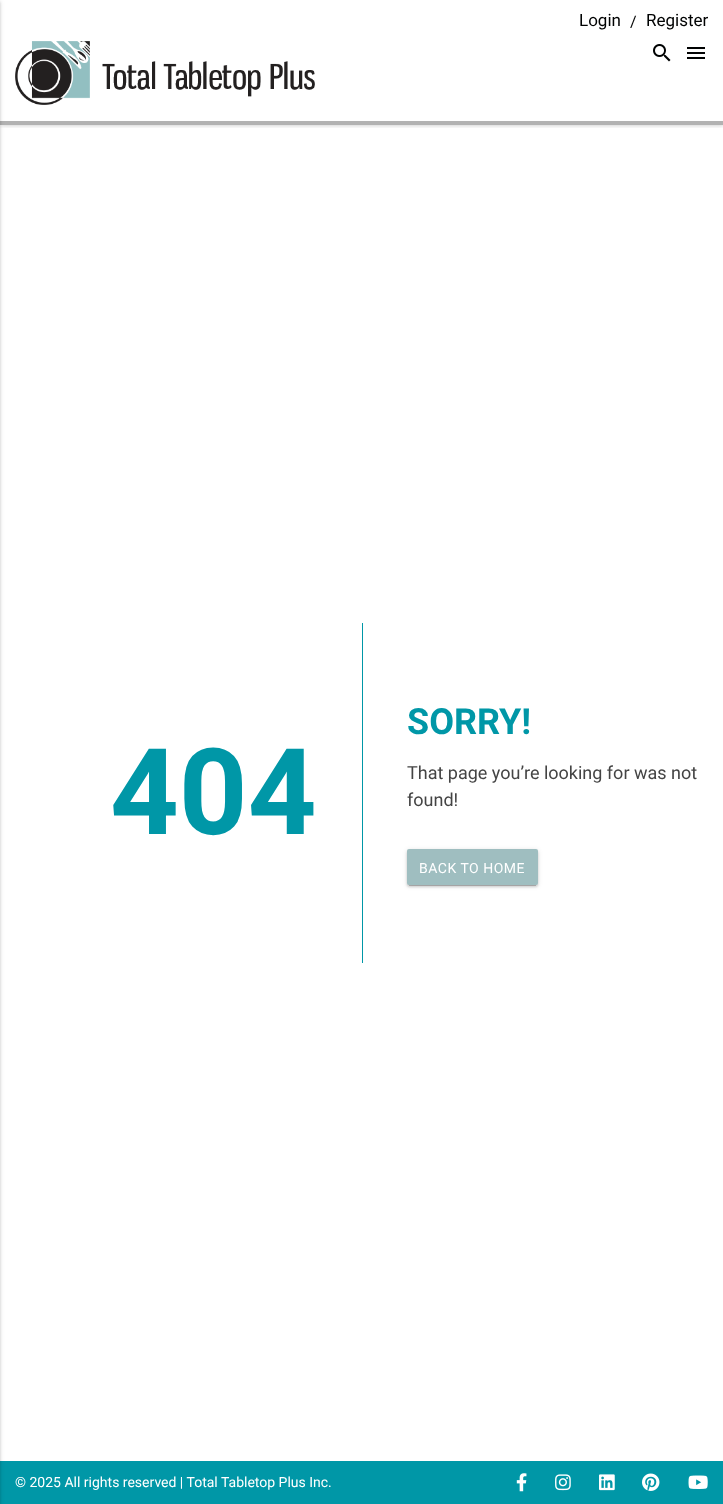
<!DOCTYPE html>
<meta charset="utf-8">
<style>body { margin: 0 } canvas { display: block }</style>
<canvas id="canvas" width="723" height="1504"></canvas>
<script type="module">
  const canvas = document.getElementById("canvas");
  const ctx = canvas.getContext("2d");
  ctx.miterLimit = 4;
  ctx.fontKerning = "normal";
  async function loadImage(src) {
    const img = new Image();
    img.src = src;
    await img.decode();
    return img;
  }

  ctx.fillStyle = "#ffffff";
  ctx.fillRect(0, 0, 723, 1504);
  ctx.save();
  ctx.beginPath();
  ctx.rect(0, 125, 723, 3);
  ctx.clip();
  ctx.fillStyle = "rgba(0, 0, 0, 0.24)";
  ctx.filter = "blur(2.5px)";
  ctx.beginPath();
  ctx.rect(1, 0, 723, 125);
  ctx.fill();
  ctx.filter = "none";
  ctx.restore();
  ctx.fillStyle = "#b2b2b2";
  ctx.fillRect(0, 121, 723, 4);
  ctx.fillStyle = "#0097a7";
  ctx.fillRect(0, 1461, 723, 43);
  ctx.fillStyle = "rgba(0, 0, 0, 0.12)";
  ctx.filter = "blur(2.5px)";
  ctx.beginPath();
  ctx.rect(-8, 1, 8, 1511);
  ctx.fill();
  ctx.filter = "none";
  ctx.fillStyle = "rgba(0, 0, 0, 0.14)";
  ctx.filter = "blur(1px)";
  ctx.beginPath();
  ctx.rect(-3, 2, 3, 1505);
  ctx.fill();
  ctx.filter = "none";
  ctx.font = "17px Roboto";
  ctx.fillStyle = "#000202";
  ctx.fillText("Login", 579, 26);
  ctx.font = "16px Roboto";
  ctx.fillText("/", 630, 27);
  ctx.font = "17px Roboto";
  ctx.fillText("Register", 646, 26);
  ctx.drawImage(await loadImage("img1.png"), 15, 41, 300, 64);
  ctx.drawImage(await loadImage("img2.png"), 653, 44, 18, 18);
  ctx.drawImage(await loadImage("img3.png"), 687, 47, 18, 12);
  ctx.font = "bold 120px Roboto";
  ctx.fillStyle = "#0097a7";
  ctx.fillText("404", 110, 834);
  ctx.fillRect(362, 623, 1, 340);
  ctx.font = "bold 36px Roboto";
  ctx.fillText("SORRY!", 407, 734);
  ctx.font = "18px Roboto";
  ctx.fillStyle = "#444444";
  ctx.fillText("That page you’re looking for was not", 407, 779);
  ctx.fillText("found!", 407, 806);
  ctx.fillStyle = "rgba(0, 0, 0, 0.2)";
  ctx.filter = "blur(0.5px)";
  ctx.beginPath();
  ctx.rect(409, 854, 127, 32);
  ctx.fill();
  ctx.filter = "none";
  ctx.fillStyle = "rgba(0, 0, 0, 0.12)";
  ctx.filter = "blur(2.5px)";
  ctx.beginPath();
  ctx.roundRect(407, 850, 131, 36, 2);
  ctx.fill();
  ctx.filter = "none";
  ctx.fillStyle = "rgba(0, 0, 0, 0.14)";
  ctx.filter = "blur(1px)";
  ctx.beginPath();
  ctx.roundRect(407, 851, 131, 36, 2);
  ctx.fill();
  ctx.filter = "none";
  ctx.fillStyle = "#9fbec0";
  ctx.beginPath();
  ctx.roundRect(407, 849, 131, 36, 2);
  ctx.fill();
  ctx.letterSpacing = "0.5px";
  ctx.font = "14px Roboto";
  ctx.fillStyle = "#ffffff";
  ctx.fillText("BACK TO HOME", 419, 873);
  ctx.letterSpacing = "0px";
  ctx.fillText("© 2025 All rights reserved | Total Tabletop Plus Inc.", 15, 1487);
  ctx.drawImage(await loadImage("img4.png"), 516, 1473, 11, 19);
  ctx.drawImage(await loadImage("img5.png"), 555, 1474, 16, 17);
  ctx.drawImage(await loadImage("img6.png"), 599, 1474, 16, 17);
  ctx.drawImage(await loadImage("img7.png"), 642, 1473, 18, 18);
  ctx.drawImage(await loadImage("img8.png"), 688, 1475, 20, 14);
</script>
